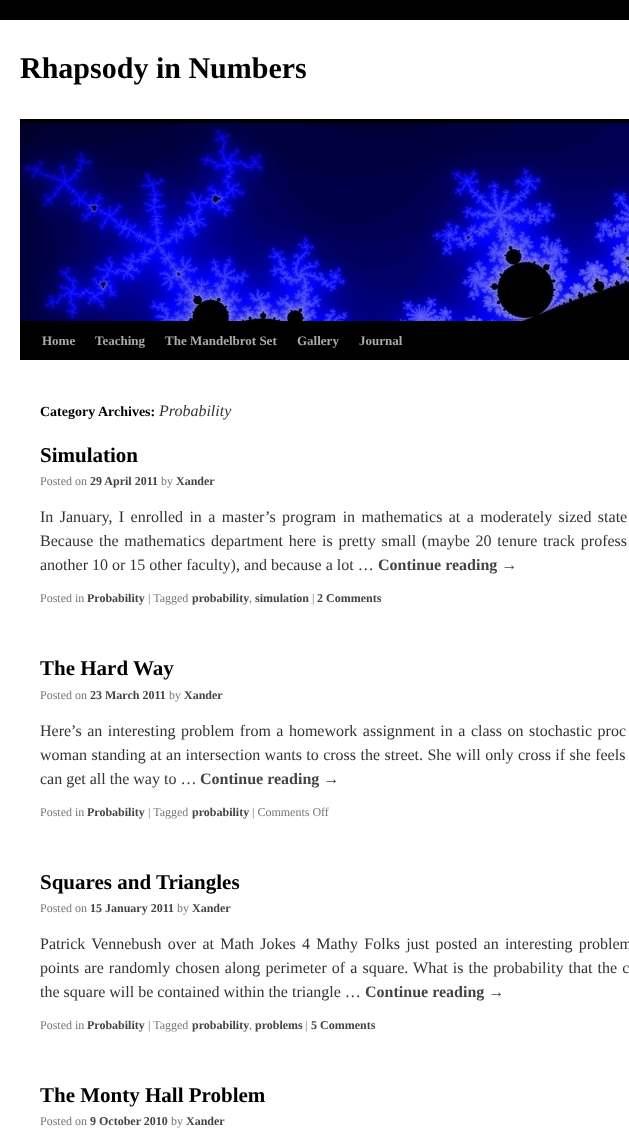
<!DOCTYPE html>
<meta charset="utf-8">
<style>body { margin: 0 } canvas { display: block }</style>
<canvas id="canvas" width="629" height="1146"></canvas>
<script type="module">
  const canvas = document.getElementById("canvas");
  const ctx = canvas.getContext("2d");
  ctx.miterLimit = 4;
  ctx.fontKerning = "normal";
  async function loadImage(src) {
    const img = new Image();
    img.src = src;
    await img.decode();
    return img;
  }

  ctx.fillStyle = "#000000";
  ctx.fillRect(0, 0, 629, 1146);
  ctx.fillStyle = "#ffffff";
  ctx.fillRect(0, 20, 629, 1126);
  ctx.font = "bold 30px Liberation Serif";
  ctx.fillStyle = "#000000";
  ctx.fillText("Rhapsody in Numbers", 20, 78);
  ctx.fillRect(20, 119, 609, 4);
  ctx.fillRect(20, 321, 609, 39);
  ctx.drawImage(await loadImage("img1.png"), 20, 123, 609, 198);
  ctx.font = "bold 13px Liberation Serif";
  ctx.fillStyle = "#aaaaaa";
  ctx.fillText("Home", 42, 345);
  ctx.fillText("Teaching", 95, 345);
  ctx.fillText("The Mandelbrot Set", 165, 345);
  ctx.fillText("Gallery", 297, 345);
  ctx.fillText("Journal", 359, 345);
  ctx.font = "bold 14px Liberation Serif";
  ctx.fillStyle = "#000000";
  ctx.fillText("Category Archives:", 40, 416);
  ctx.font = "italic 16px Liberation Serif";
  ctx.fillStyle = "#333333";
  ctx.fillText("Probability", 159, 416);
  ctx.font = "bold 21px Liberation Serif";
  ctx.fillStyle = "#000000";
  ctx.fillText("Simulation", 40, 462);
  ctx.font = "12px Liberation Serif";
  ctx.fillStyle = "#777777";
  ctx.fillText("Posted on", 40, 485);
  ctx.font = "bold 12px Liberation Serif";
  ctx.fillStyle = "#444444";
  ctx.fillText("29 April 2011", 90, 485);
  ctx.font = "12px Liberation Serif";
  ctx.fillStyle = "#777777";
  ctx.fillText("by", 161, 485);
  ctx.font = "bold 12px Liberation Serif";
  ctx.fillStyle = "#444444";
  ctx.fillText("Xander", 176, 485);
  ctx.wordSpacing = "2.4px";
  ctx.font = "16px Liberation Serif";
  ctx.fillStyle = "#333333";
  ctx.fillText("In January, I enrolled in a master’s program in mathematics at a moderately sized state", 40, 522);
  ctx.wordSpacing = "1.75px";
  ctx.fillText("Because the mathematics department here is pretty small (maybe 20 tenure track profess", 40, 546);
  ctx.wordSpacing = "0px";
  ctx.fillText("another 10 or 15 other faculty), and because a lot …", 40, 570);
  ctx.font = "bold 16px Liberation Serif";
  ctx.fillStyle = "#444444";
  ctx.fillText("Continue reading →", 378, 570);
  ctx.font = "12px Liberation Serif";
  ctx.fillStyle = "#777777";
  ctx.fillText("Posted in", 40, 602);
  ctx.font = "bold 12px Liberation Serif";
  ctx.fillStyle = "#444444";
  ctx.fillText("Probability", 87, 602);
  ctx.font = "12px Liberation Serif";
  ctx.fillStyle = "#777777";
  ctx.fillText("| Tagged", 148, 602);
  ctx.font = "bold 12px Liberation Serif";
  ctx.fillStyle = "#444444";
  ctx.fillText("probability", 192, 602);
  ctx.font = "12px Liberation Serif";
  ctx.fillStyle = "#777777";
  ctx.fillText(",", 249, 602);
  ctx.font = "bold 12px Liberation Serif";
  ctx.fillStyle = "#444444";
  ctx.fillText("simulation", 255, 602);
  ctx.font = "12px Liberation Serif";
  ctx.fillStyle = "#777777";
  ctx.fillText("|", 312, 602);
  ctx.font = "bold 12px Liberation Serif";
  ctx.fillStyle = "#444444";
  ctx.fillText("2 Comments", 317, 602);
  ctx.font = "bold 21px Liberation Serif";
  ctx.fillStyle = "#000000";
  ctx.fillText("The Hard Way", 40, 675);
  ctx.font = "12px Liberation Serif";
  ctx.fillStyle = "#777777";
  ctx.fillText("Posted on", 40, 699);
  ctx.font = "bold 12px Liberation Serif";
  ctx.fillStyle = "#444444";
  ctx.fillText("23 March 2011", 90, 699);
  ctx.font = "12px Liberation Serif";
  ctx.fillStyle = "#777777";
  ctx.fillText("by", 169, 699);
  ctx.font = "bold 12px Liberation Serif";
  ctx.fillStyle = "#444444";
  ctx.fillText("Xander", 184, 699);
  ctx.wordSpacing = "1.5px";
  ctx.font = "16px Liberation Serif";
  ctx.fillStyle = "#333333";
  ctx.fillText("Here’s an interesting problem from a homework assignment in a class on stochastic proc", 40, 736);
  ctx.wordSpacing = "0.4px";
  ctx.fillText("woman standing at an intersection wants to cross the street. She will only cross if she feels", 40, 760);
  ctx.wordSpacing = "0px";
  ctx.fillText("can get all the way to …", 40, 784);
  ctx.font = "bold 16px Liberation Serif";
  ctx.fillStyle = "#444444";
  ctx.fillText("Continue reading →", 200, 784);
  ctx.font = "12px Liberation Serif";
  ctx.fillStyle = "#777777";
  ctx.fillText("Posted in", 40, 816);
  ctx.font = "bold 12px Liberation Serif";
  ctx.fillStyle = "#444444";
  ctx.fillText("Probability", 87, 816);
  ctx.font = "12px Liberation Serif";
  ctx.fillStyle = "#777777";
  ctx.fillText("| Tagged", 148, 816);
  ctx.font = "bold 12px Liberation Serif";
  ctx.fillStyle = "#444444";
  ctx.fillText("probability", 192, 816);
  ctx.font = "12px Liberation Serif";
  ctx.fillStyle = "#777777";
  ctx.fillText("| Comments Off", 252, 816);
  ctx.font = "bold 21px Liberation Serif";
  ctx.fillStyle = "#000000";
  ctx.fillText("Squares and Triangles", 40, 889);
  ctx.font = "12px Liberation Serif";
  ctx.fillStyle = "#777777";
  ctx.fillText("Posted on", 40, 912);
  ctx.font = "bold 12px Liberation Serif";
  ctx.fillStyle = "#444444";
  ctx.fillText("15 January 2011", 90, 912);
  ctx.font = "12px Liberation Serif";
  ctx.fillStyle = "#777777";
  ctx.fillText("by", 177, 912);
  ctx.font = "bold 12px Liberation Serif";
  ctx.fillStyle = "#444444";
  ctx.fillText("Xander", 192, 912);
  ctx.wordSpacing = "2.25px";
  ctx.font = "16px Liberation Serif";
  ctx.fillStyle = "#333333";
  ctx.fillText("Patrick Vennebush over at Math Jokes 4 Mathy Folks just posted an interesting problem", 40, 949);
  ctx.wordSpacing = "1.1px";
  ctx.fillText("points are randomly chosen along perimeter of a square. What is the probability that the c", 40, 973);
  ctx.wordSpacing = "0px";
  ctx.fillText("the square will be contained within the triangle …", 40, 997);
  ctx.font = "bold 16px Liberation Serif";
  ctx.fillStyle = "#444444";
  ctx.fillText("Continue reading →", 365, 997);
  ctx.font = "12px Liberation Serif";
  ctx.fillStyle = "#777777";
  ctx.fillText("Posted in", 40, 1029);
  ctx.font = "bold 12px Liberation Serif";
  ctx.fillStyle = "#444444";
  ctx.fillText("Probability", 87, 1029);
  ctx.font = "12px Liberation Serif";
  ctx.fillStyle = "#777777";
  ctx.fillText("| Tagged", 148, 1029);
  ctx.font = "bold 12px Liberation Serif";
  ctx.fillStyle = "#444444";
  ctx.fillText("probability", 192, 1029);
  ctx.font = "12px Liberation Serif";
  ctx.fillStyle = "#777777";
  ctx.fillText(",", 249, 1029);
  ctx.font = "bold 12px Liberation Serif";
  ctx.fillStyle = "#444444";
  ctx.fillText("problems", 255, 1029);
  ctx.font = "12px Liberation Serif";
  ctx.fillStyle = "#777777";
  ctx.fillText("|", 305, 1029);
  ctx.font = "bold 12px Liberation Serif";
  ctx.fillStyle = "#444444";
  ctx.fillText("5 Comments", 311, 1029);
  ctx.font = "bold 21px Liberation Serif";
  ctx.fillStyle = "#000000";
  ctx.fillText("The Monty Hall Problem", 40, 1102);
  ctx.font = "12px Liberation Serif";
  ctx.fillStyle = "#777777";
  ctx.fillText("Posted on", 40, 1125);
  ctx.font = "bold 12px Liberation Serif";
  ctx.fillStyle = "#444444";
  ctx.fillText("9 October 2010", 90, 1125);
  ctx.font = "12px Liberation Serif";
  ctx.fillStyle = "#777777";
  ctx.fillText("by", 171, 1125);
  ctx.font = "bold 12px Liberation Serif";
  ctx.fillStyle = "#444444";
  ctx.fillText("Xander", 186, 1125);
</script>
